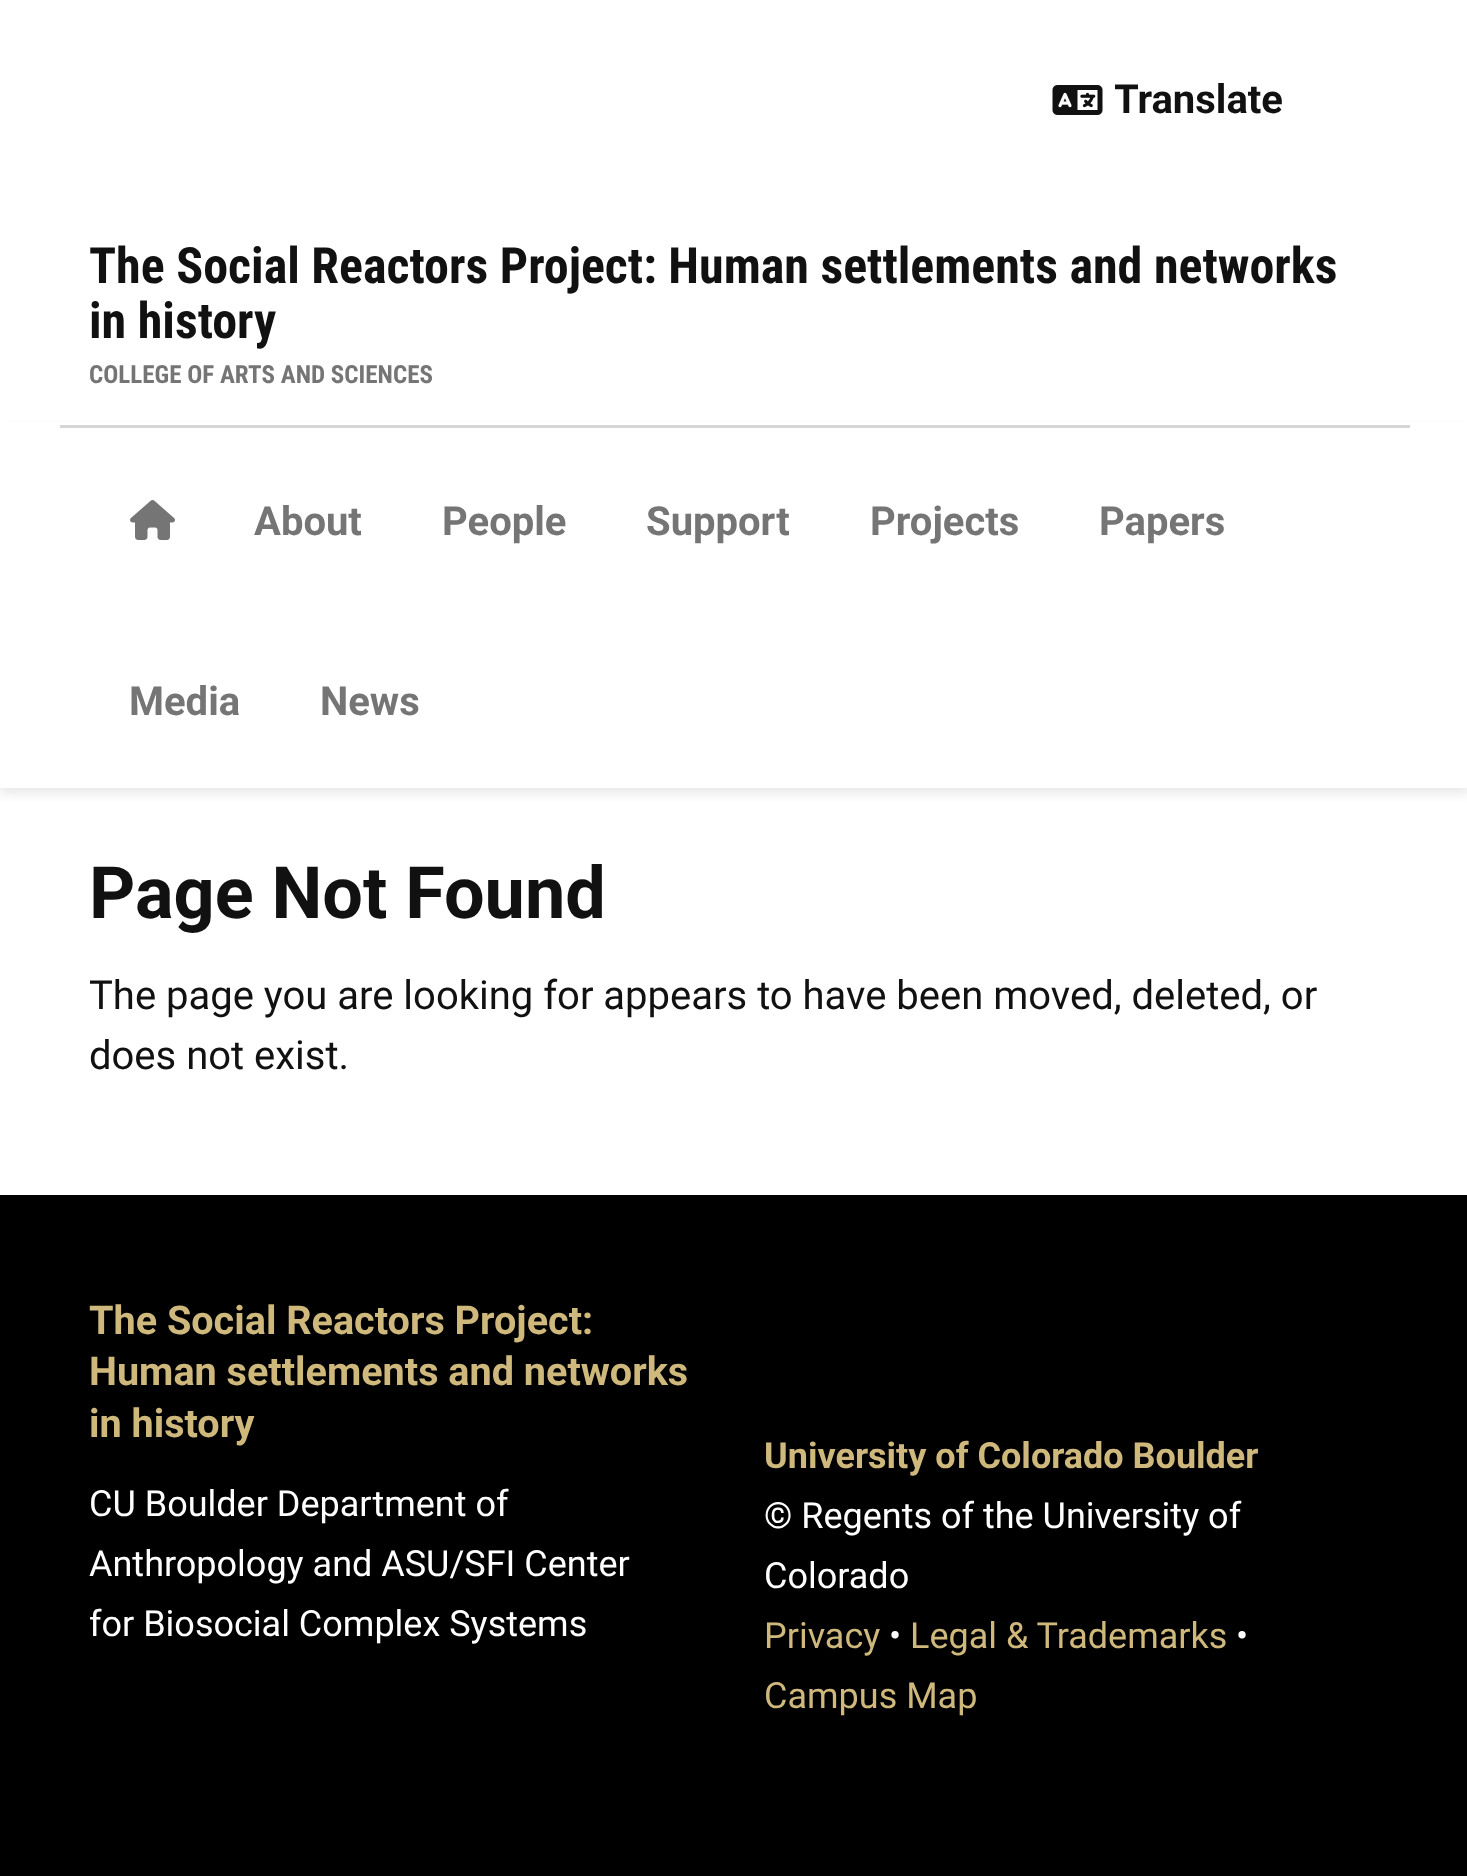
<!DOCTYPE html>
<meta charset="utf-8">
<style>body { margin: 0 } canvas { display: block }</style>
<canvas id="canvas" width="1467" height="1876"></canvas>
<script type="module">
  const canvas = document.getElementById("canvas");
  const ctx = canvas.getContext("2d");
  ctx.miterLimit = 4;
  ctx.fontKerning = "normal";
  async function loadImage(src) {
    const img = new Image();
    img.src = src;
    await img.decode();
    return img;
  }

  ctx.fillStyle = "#ffffff";
  ctx.fillRect(0, 0, 1467, 1876);
  ctx.drawImage(await loadImage("img1.png"), 1052, 85, 51, 30);
  ctx.save();
  ctx.beginPath();
  ctx.rect(1115, 70, 175, 60);
  ctx.clip();
  ctx.font = "bold 40px Roboto";
  ctx.fillStyle = "#111111";
  ctx.fillText("Translate", 1114, 113);
  ctx.restore();
  ctx.fillStyle = "rgba(0, 0, 0, 0.1)";
  ctx.filter = "blur(6px)";
  ctx.beginPath();
  ctx.rect(0, 430, 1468, 363);
  ctx.fill();
  ctx.filter = "none";
  ctx.fillStyle = "#ffffff";
  ctx.fillRect(1, 422, 1466, 3);
  ctx.font = "bold 50px Roboto Condensed";
  ctx.fillStyle = "#111111";
  ctx.fillText("The Social Reactors Project: Human settlements and networks", 89, 283);
  ctx.fillText("in history", 89, 338);
  ctx.font = "bold 25px Roboto Condensed";
  ctx.fillStyle = "#757575";
  ctx.fillText("COLLEGE OF ARTS AND SCIENCES", 89, 383);
  ctx.fillStyle = "#ffffff";
  ctx.fillRect(0, 425, 1467, 363);
  ctx.fillStyle = "#d5d5d5";
  ctx.fillRect(60, 425, 1350, 3);
  ctx.drawImage(await loadImage("img2.png"), 130, 500, 45, 40);
  ctx.font = "bold 40px Roboto";
  ctx.fillStyle = "#757575";
  ctx.fillText("About", 254, 535);
  ctx.fillText("People", 442, 535);
  ctx.fillText("Support", 646, 535);
  ctx.fillText("Projects", 870, 535);
  ctx.fillText("Papers", 1099, 535);
  ctx.fillText("Media", 129, 715);
  ctx.fillText("News", 320, 715);
  ctx.font = "bold 72px Roboto";
  ctx.fillStyle = "#111111";
  ctx.fillText("Page Not Found", 89, 918);
  ctx.font = "40px Roboto";
  ctx.fillText("The page you are looking for appears to have been moved, deleted, or", 89, 1009);
  ctx.fillText("does not exist.", 89, 1069);
  ctx.fillStyle = "#000000";
  ctx.fillRect(0, 1195, 1467, 681);
  ctx.font = "bold 39.6px Roboto";
  ctx.fillStyle = "#cfb87c";
  ctx.fillText("The Social Reactors Project:", 89, 1334);
  ctx.fillText("Human settlements and networks", 89, 1385);
  ctx.fillText("in history", 89, 1437);
  ctx.font = "36px Roboto";
  ctx.fillStyle = "#ffffff";
  ctx.fillText("CU Boulder Department of", 89, 1516);
  ctx.fillText("Anthropology and ASU/SFI Center", 89, 1576);
  ctx.fillText("for Biosocial Complex Systems", 89, 1636);
  ctx.font = "bold 36px Roboto";
  ctx.fillStyle = "#cfb87c";
  ctx.fillText("University of Colorado Boulder", 764, 1468);
  ctx.font = "36px Roboto";
  ctx.fillStyle = "#ffffff";
  ctx.fillText("© Regents of the University of", 764, 1528);
  ctx.fillText("Colorado", 764, 1588);
  ctx.fillStyle = "#cfb87c";
  ctx.fillText("Privacy", 764, 1648);
  ctx.fillStyle = "#ffffff";
  ctx.fillText("•", 889, 1648);
  ctx.fillStyle = "#cfb87c";
  ctx.fillText("Legal & Trademarks", 910, 1648);
  ctx.fillStyle = "#ffffff";
  ctx.fillText("•", 1236, 1648);
  ctx.fillStyle = "#cfb87c";
  ctx.fillText("Campus Map", 764, 1708);
</script>
